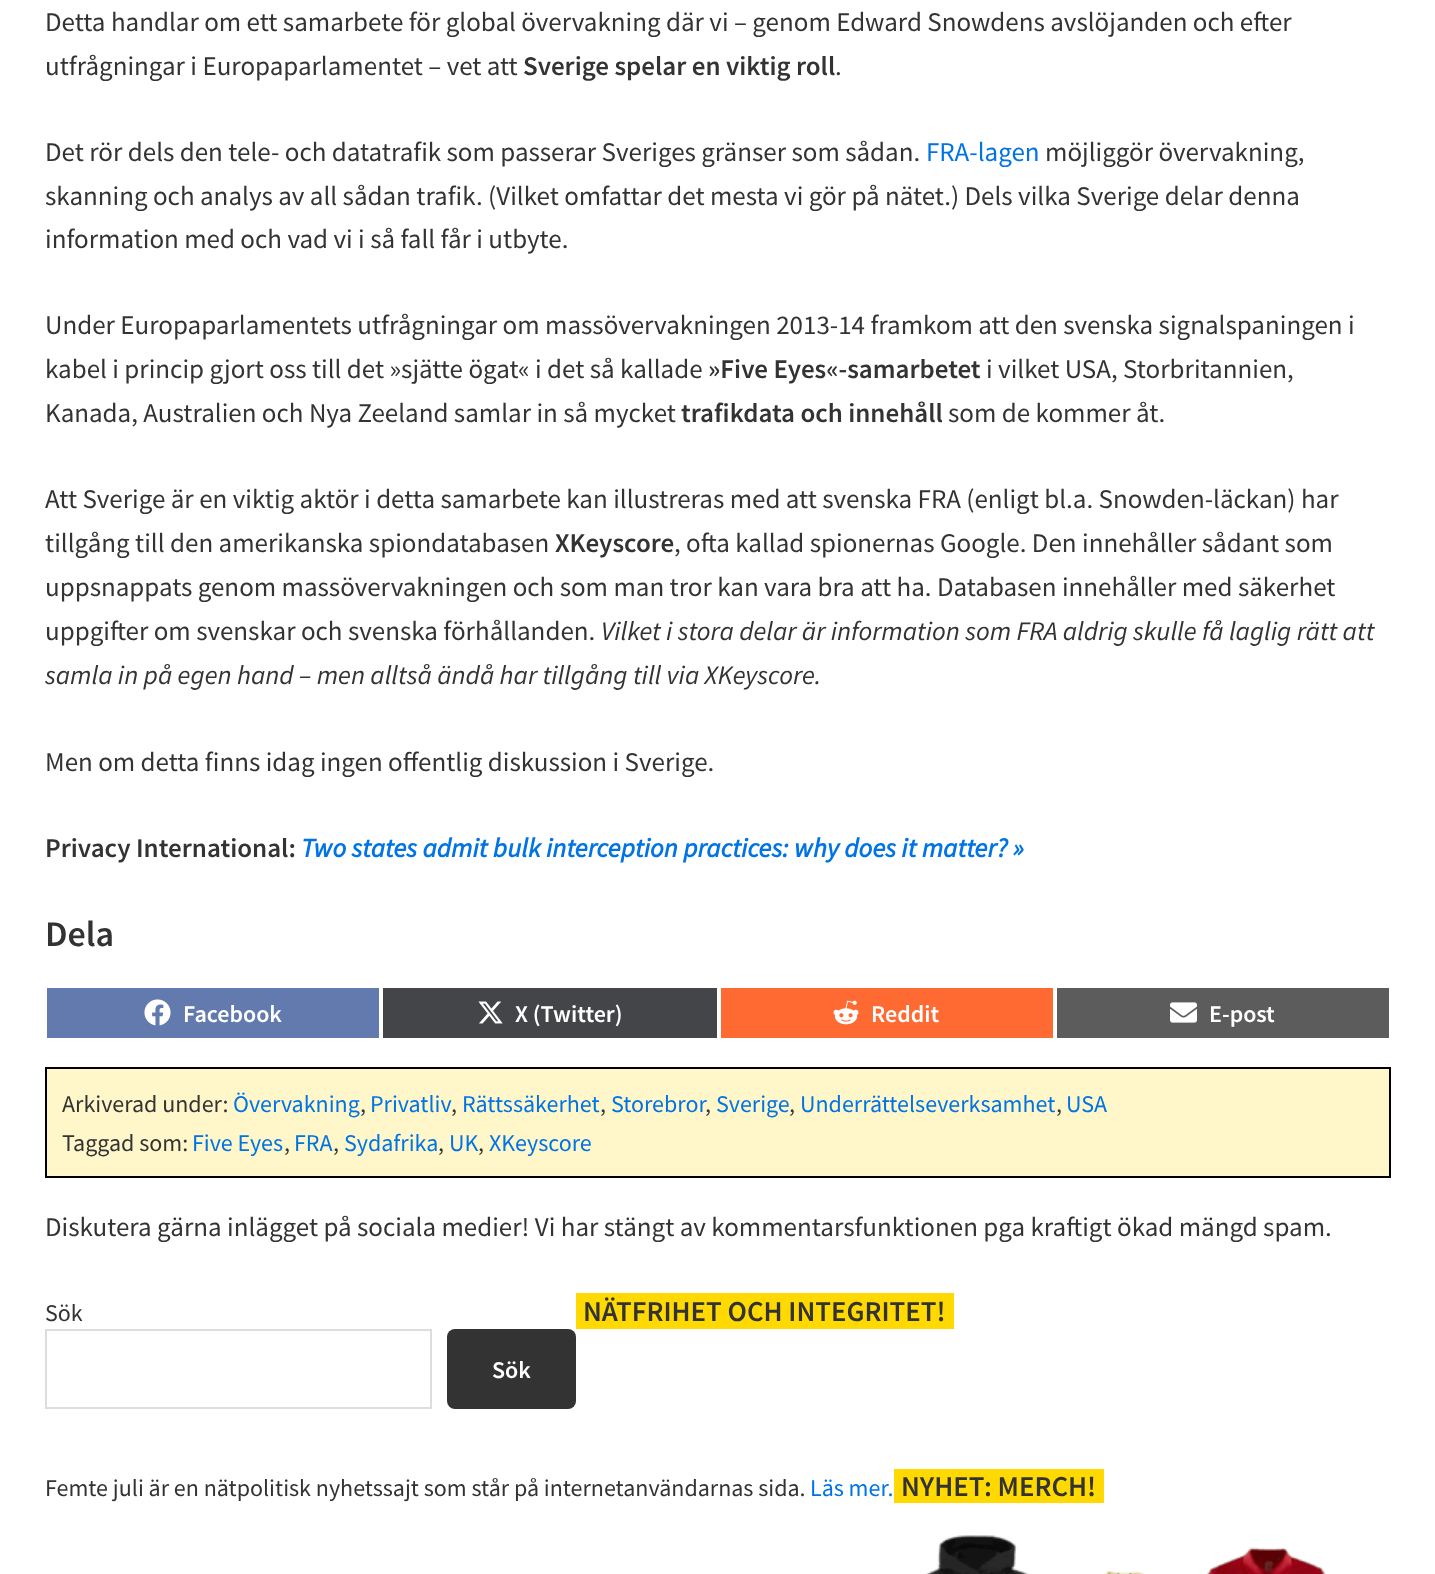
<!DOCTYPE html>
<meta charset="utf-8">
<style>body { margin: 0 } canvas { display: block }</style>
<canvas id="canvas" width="1435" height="1574"></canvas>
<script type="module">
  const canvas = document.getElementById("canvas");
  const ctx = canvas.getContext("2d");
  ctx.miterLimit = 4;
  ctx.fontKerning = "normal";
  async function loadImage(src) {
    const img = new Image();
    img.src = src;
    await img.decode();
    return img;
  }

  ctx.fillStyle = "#ffffff";
  ctx.fillRect(0, 0, 1435, 1574);
  ctx.font = "27px Source Sans Pro";
  ctx.fillStyle = "#333333";
  ctx.fillText("Detta handlar om ett samarbete för global övervakning där vi – genom Edward Snowdens avslöjanden och efter", 45, 31);
  ctx.fillText("utfrågningar i Europaparlamentet – vet att", 45, 75);
  ctx.font = "600 27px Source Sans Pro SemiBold";
  ctx.fillText("Sverige spelar en viktig roll", 523, 75);
  ctx.font = "27px Source Sans Pro";
  ctx.fillText(".", 835, 75);
  ctx.fillText("Det rör dels den tele- och datatrafik som passerar Sveriges gränser som sådan.", 45, 161);
  ctx.fillStyle = "#0073e5";
  ctx.fillText("FRA-lagen", 926, 161);
  ctx.fillStyle = "#333333";
  ctx.fillText("möjliggör övervakning,", 1045, 161);
  ctx.fillText("skanning och analys av all sådan trafik. (Vilket omfattar det mesta vi gör på nätet.) Dels vilka Sverige delar denna", 45, 205);
  ctx.fillText("information med och vad vi i så fall får i utbyte.", 45, 248);
  ctx.fillText("Under Europaparlamentets utfrågningar om massövervakningen 2013-14 framkom att den svenska signalspaningen i", 45, 334);
  ctx.fillText("kabel i princip gjort oss till det »sjätte ögat« i det så kallade", 45, 378);
  ctx.font = "600 27px Source Sans Pro SemiBold";
  ctx.fillText("»Five Eyes«-samarbetet", 708, 378);
  ctx.font = "27px Source Sans Pro";
  ctx.fillText("i vilket USA, Storbritannien,", 986, 378);
  ctx.fillText("Kanada, Australien och Nya Zeeland samlar in så mycket", 45, 422);
  ctx.font = "600 27px Source Sans Pro SemiBold";
  ctx.fillText("trafikdata och innehåll", 681, 422);
  ctx.font = "27px Source Sans Pro";
  ctx.fillText("som de kommer åt.", 948, 422);
  ctx.fillText("Att Sverige är en viktig aktör i detta samarbete kan illustreras med att svenska FRA (enligt bl.a. Snowden-läckan) har", 45, 508);
  ctx.fillText("tillgång till den amerikanska spiondatabasen", 45, 552);
  ctx.font = "600 27px Source Sans Pro SemiBold";
  ctx.fillText("XKeyscore", 555, 552);
  ctx.font = "27px Source Sans Pro";
  ctx.fillText(", ofta kallad spionernas Google. Den innehåller sådant som", 674, 552);
  ctx.fillText("uppsnappats genom massövervakningen och som man tror kan vara bra att ha. Databasen innehåller med säkerhet", 45, 596);
  ctx.fillText("uppgifter om svenskar och svenska förhållanden.", 45, 640);
  ctx.font = "italic 26.75px Source Sans Pro";
  ctx.fillText("Vilket i stora delar är information som FRA aldrig skulle få laglig rätt att", 601, 640);
  ctx.fillText("samla in på egen hand – men alltså ändå har tillgång till via XKeyscore.", 45, 684);
  ctx.font = "27px Source Sans Pro";
  ctx.fillText("Men om detta finns idag ingen offentlig diskussion i Sverige.", 45, 771);
  ctx.font = "600 27px Source Sans Pro SemiBold";
  ctx.fillText("Privacy International:", 45, 857);
  ctx.font = "italic bold 26.75px Source Sans Pro";
  ctx.fillStyle = "#0073e5";
  ctx.fillText("Two states admit bulk interception practices: why does it matter? »", 301, 857);
  ctx.font = "600 36px Source Sans Pro SemiBold";
  ctx.fillStyle = "#333333";
  ctx.fillText("Dela", 45, 946);
  ctx.fillStyle = "#627aad";
  ctx.fillRect(47, 988, 332, 50);
  ctx.drawImage(await loadImage("img1.png"), 144, 999, 27, 27);
  ctx.font = "600 24px Source Sans Pro SemiBold";
  ctx.fillStyle = "#ffffff";
  ctx.fillText("Facebook", 183, 1022);
  ctx.fillStyle = "#434548";
  ctx.fillRect(383, 988, 334, 50);
  ctx.drawImage(await loadImage("img2.png"), 478, 1001, 25, 23);
  ctx.fillStyle = "#ffffff";
  ctx.fillText("X (Twitter)", 515, 1022);
  ctx.fillStyle = "#ff6a33";
  ctx.fillRect(721, 988, 332, 50);
  ctx.drawImage(await loadImage("img3.png"), 833, 1000, 26, 25);
  ctx.fillStyle = "#ffffff";
  ctx.fillText("Reddit", 871, 1022);
  ctx.fillStyle = "#5c5c5c";
  ctx.fillRect(1057, 988, 332, 50);
  ctx.drawImage(await loadImage("img4.png"), 1170, 1002, 27, 21);
  ctx.fillStyle = "#ffffff";
  ctx.fillText("E-post", 1209, 1022);
  ctx.fillStyle = "#fff7c9";
  ctx.beginPath();
  ctx.rect(46, 1068, 1344, 109);
  ctx.fill();
  ctx.strokeStyle = "#000000";
  ctx.lineWidth = 2;
  ctx.stroke();
  ctx.font = "24px Source Sans Pro";
  ctx.fillStyle = "#333333";
  ctx.fillText("Arkiverad under:", 62, 1112);
  ctx.fillStyle = "#0073e5";
  ctx.fillText("Övervakning", 233, 1112);
  ctx.fillStyle = "#333333";
  ctx.fillText(",", 360, 1112);
  ctx.fillStyle = "#0073e5";
  ctx.fillText("Privatliv", 370, 1112);
  ctx.fillStyle = "#333333";
  ctx.fillText(",", 451, 1112);
  ctx.fillStyle = "#0073e5";
  ctx.fillText("Rättssäkerhet", 462, 1112);
  ctx.fillStyle = "#333333";
  ctx.fillText(",", 600, 1112);
  ctx.fillStyle = "#0073e5";
  ctx.fillText("Storebror", 611, 1112);
  ctx.fillStyle = "#333333";
  ctx.fillText(",", 705, 1112);
  ctx.fillStyle = "#0073e5";
  ctx.fillText("Sverige", 716, 1112);
  ctx.fillStyle = "#333333";
  ctx.fillText(",", 789, 1112);
  ctx.fillStyle = "#0073e5";
  ctx.fillText("Underrättelseverksamhet", 800, 1112);
  ctx.fillStyle = "#333333";
  ctx.fillText(",", 1056, 1112);
  ctx.fillStyle = "#0073e5";
  ctx.fillText("USA", 1066, 1112);
  ctx.fillStyle = "#333333";
  ctx.fillText("Taggad som:", 62, 1151);
  ctx.fillStyle = "#0073e5";
  ctx.fillText("Five Eyes", 192, 1151);
  ctx.fillStyle = "#333333";
  ctx.fillText(",", 284, 1151);
  ctx.fillStyle = "#0073e5";
  ctx.fillText("FRA", 294, 1151);
  ctx.fillStyle = "#333333";
  ctx.fillText(",", 333, 1151);
  ctx.fillStyle = "#0073e5";
  ctx.fillText("Sydafrika", 344, 1151);
  ctx.fillStyle = "#333333";
  ctx.fillText(",", 438, 1151);
  ctx.fillStyle = "#0073e5";
  ctx.fillText("UK", 449, 1151);
  ctx.fillStyle = "#333333";
  ctx.fillText(",", 478, 1151);
  ctx.fillStyle = "#0073e5";
  ctx.fillText("XKeyscore", 489, 1151);
  ctx.font = "27px Source Sans Pro";
  ctx.fillStyle = "#333333";
  ctx.fillText("Diskutera gärna inlägget på sociala medier! Vi har stängt av kommentarsfunktionen pga kraftigt ökad mängd spam.", 45, 1236);
  ctx.font = "24px Source Sans Pro";
  ctx.fillText("Sök", 45, 1321);
  ctx.strokeStyle = "#dddddd";
  ctx.strokeRect(46, 1330, 385, 78);
  ctx.beginPath();
  ctx.roundRect(447, 1329, 129, 80, 8);
  ctx.fill();
  ctx.font = "600 24px Source Sans Pro SemiBold";
  ctx.fillStyle = "#ffffff";
  ctx.fillText("Sök", 492, 1378);
  ctx.fillStyle = "#ffd900";
  ctx.fillRect(576, 1293, 378, 36);
  ctx.font = "600 28.75px Source Sans Pro SemiBold";
  ctx.fillStyle = "#333333";
  ctx.fillText("NÄTFRIHET OCH INTEGRITET!", 583, 1321);
  ctx.font = "24px Source Sans Pro";
  ctx.fillText("Femte juli är en nätpolitisk nyhetssajt som står på internetanvändarnas sida.", 45, 1496);
  ctx.fillStyle = "#0073e5";
  ctx.fillText("Läs mer.", 810, 1496);
  ctx.fillStyle = "#ffd900";
  ctx.fillRect(894, 1469, 210, 34);
  ctx.font = "600 28.75px Source Sans Pro SemiBold";
  ctx.fillStyle = "#333333";
  ctx.fillText("NYHET: MERCH!", 901, 1496);
  ctx.drawImage(await loadImage("img5.png"), 926, 1535, 400, 39);
</script>
